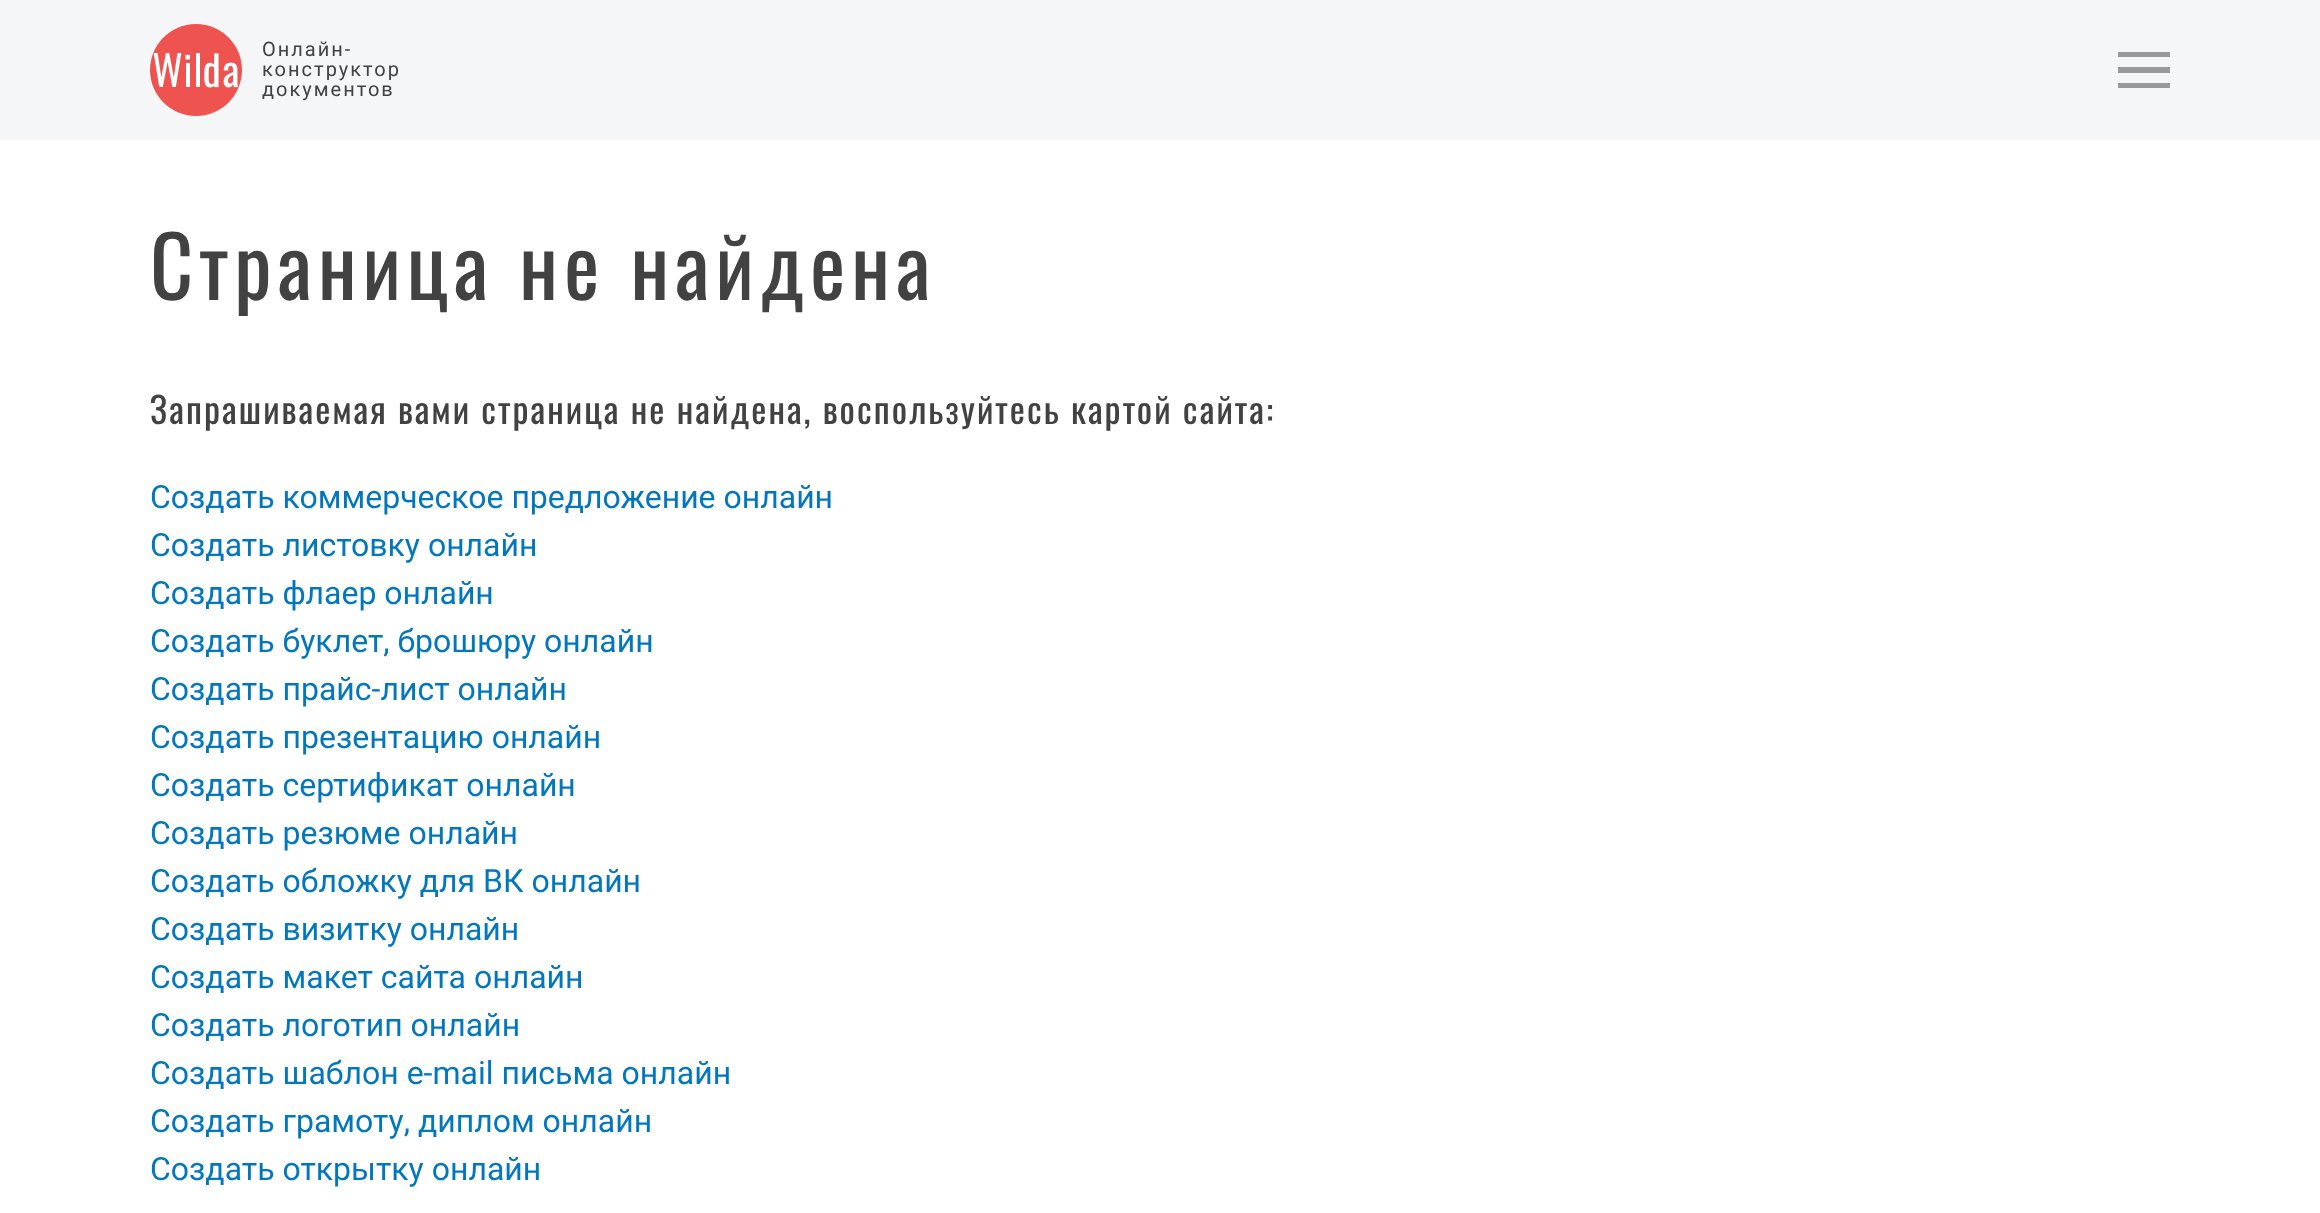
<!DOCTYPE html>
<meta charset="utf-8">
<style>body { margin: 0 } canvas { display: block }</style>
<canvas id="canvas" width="2320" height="1213"></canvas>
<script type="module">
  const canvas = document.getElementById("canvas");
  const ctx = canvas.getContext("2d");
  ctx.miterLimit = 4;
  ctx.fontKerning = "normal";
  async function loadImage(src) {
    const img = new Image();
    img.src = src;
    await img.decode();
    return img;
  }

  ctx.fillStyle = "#ffffff";
  ctx.fillRect(0, 0, 2320, 1213);
  ctx.fillStyle = "#f4f6f7";
  ctx.fillRect(0, 0, 2320, 140);
  ctx.drawImage(await loadImage("img1.png"), 150, 24, 92, 92);
  ctx.letterSpacing = "2px";
  ctx.font = "20px Roboto";
  ctx.fillStyle = "#424242";
  ctx.fillText("Онлайн-", 262, 56);
  ctx.fillText("конструктор", 262, 76);
  ctx.fillText("документов", 262, 96);
  ctx.fillStyle = "#999999";
  ctx.fillRect(2118, 52, 52, 5);
  ctx.fillRect(2118, 67, 52, 6);
  ctx.fillRect(2118, 83, 52, 5);
  ctx.letterSpacing = "6px";
  ctx.font = "84px Oswald";
  ctx.fillStyle = "#424242";
  ctx.fillText("Страница не найдена", 150, 300);
  ctx.letterSpacing = "2px";
  ctx.font = "36px Oswald";
  ctx.fillText("Запрашиваемая вами страница не найдена, воспользуйтесь картой сайта:", 150, 424);
  ctx.letterSpacing = "0px";
  ctx.font = "32px Roboto";
  ctx.fillStyle = "#0277bd";
  ctx.fillText("Создать коммерческое предложение онлайн", 150, 508);
  ctx.fillText("Создать листовку онлайн", 150, 556);
  ctx.fillText("Создать флаер онлайн", 150, 604);
  ctx.fillText("Создать буклет, брошюру онлайн", 150, 652);
  ctx.fillText("Создать прайс-лист онлайн", 150, 700);
  ctx.fillText("Создать презентацию онлайн", 150, 748);
  ctx.fillText("Создать сертификат онлайн", 150, 796);
  ctx.fillText("Создать резюме онлайн", 150, 844);
  ctx.fillText("Создать обложку для ВК онлайн", 150, 892);
  ctx.fillText("Создать визитку онлайн", 150, 940);
  ctx.fillText("Создать макет сайта онлайн", 150, 988);
  ctx.fillText("Создать логотип онлайн", 150, 1036);
  ctx.fillText("Создать шаблон e-mail письма онлайн", 150, 1084);
  ctx.fillText("Создать грамоту, диплом онлайн", 150, 1132);
  ctx.fillText("Создать открытку онлайн", 150, 1180);
</script>
